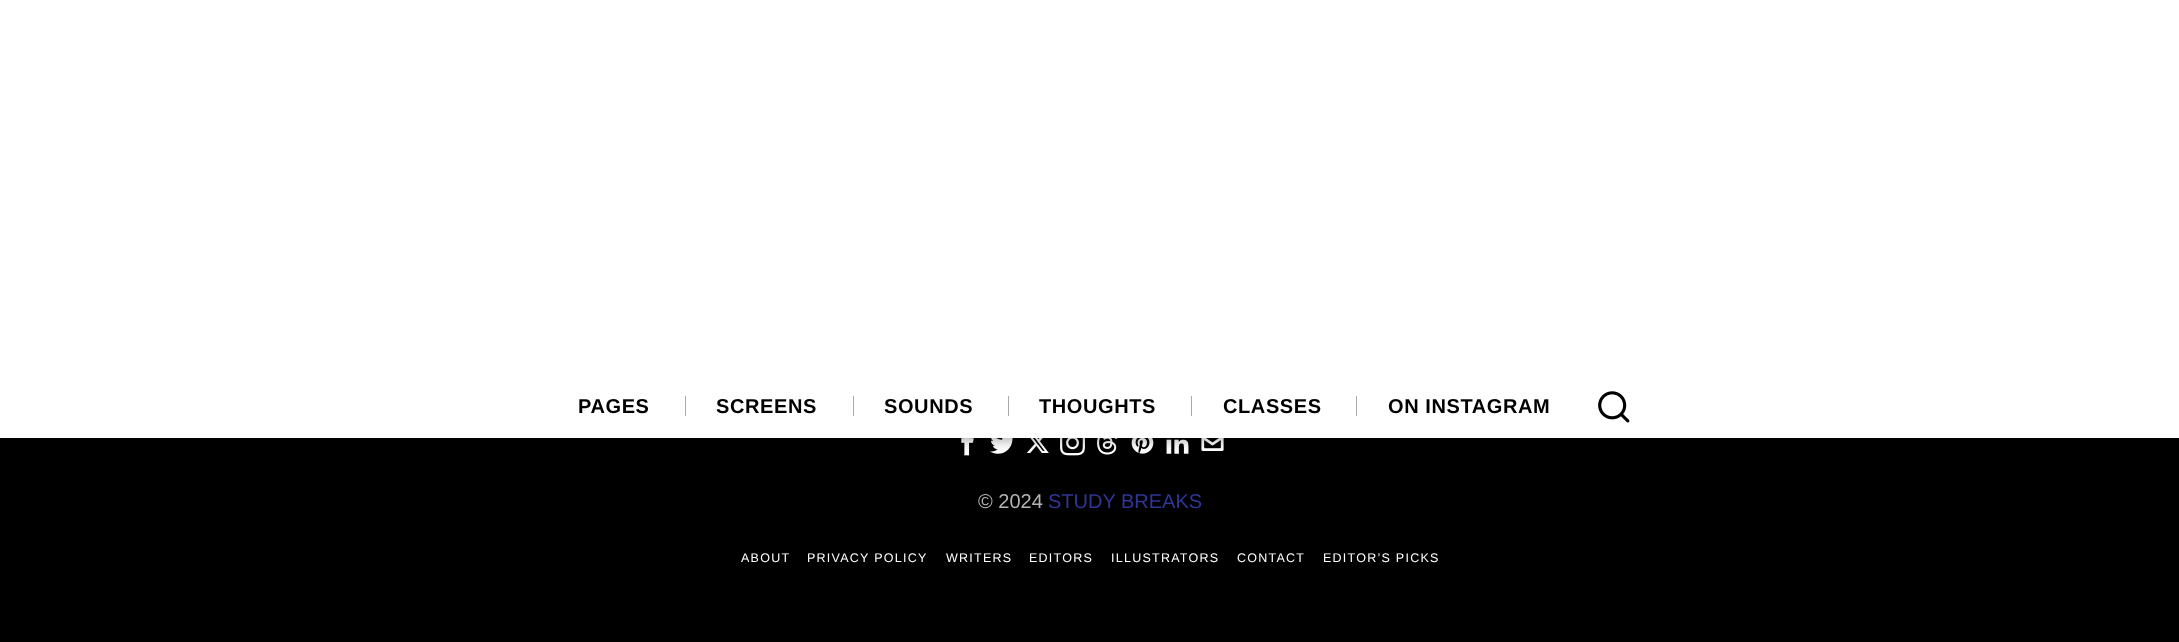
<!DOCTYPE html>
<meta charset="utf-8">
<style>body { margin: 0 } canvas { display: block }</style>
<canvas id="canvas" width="2179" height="642"></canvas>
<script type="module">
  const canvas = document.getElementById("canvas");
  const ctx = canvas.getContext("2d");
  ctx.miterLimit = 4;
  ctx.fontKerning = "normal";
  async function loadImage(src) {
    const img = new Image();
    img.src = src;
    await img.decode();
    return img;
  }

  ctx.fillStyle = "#000000";
  ctx.fillRect(0, 0, 2179, 642);
  ctx.drawImage(await loadImage("img2.png"), 961, 438, 13, 18);
  ctx.drawImage(await loadImage("img3.png"), 990, 438, 23, 16);
  ctx.drawImage(await loadImage("img4.png"), 1026, 438, 23, 15);
  ctx.drawImage(await loadImage("img5.png"), 1060, 438, 25, 18);
  ctx.drawImage(await loadImage("img6.png"), 1097, 438, 21, 17);
  ctx.drawImage(await loadImage("img7.png"), 1131, 438, 23, 16);
  ctx.drawImage(await loadImage("img8.png"), 1166, 438, 23, 16);
  ctx.drawImage(await loadImage("img9.png"), 1201, 438, 23, 13);
  ctx.fillStyle = "rgba(0, 0, 0, 0.3)";
  ctx.filter = "blur(6px)";
  ctx.beginPath();
  ctx.rect(0, 4, 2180, 437);
  ctx.fill();
  ctx.filter = "none";
  ctx.fillStyle = "#ffffff";
  ctx.fillRect(0, 0, 2179, 438);
  ctx.letterSpacing = "0.6px";
  ctx.font = "bold 20px Liberation Sans";
  ctx.fillStyle = "#000000";
  ctx.fillText("PAGES", 578, 413);
  ctx.fillStyle = "#aaaaaa";
  ctx.fillRect(685, 396, 1, 20);
  ctx.fillStyle = "#000000";
  ctx.fillText("SCREENS", 716, 413);
  ctx.fillStyle = "#aaaaaa";
  ctx.fillRect(853, 396, 1, 20);
  ctx.fillStyle = "#000000";
  ctx.fillText("SOUNDS", 884, 413);
  ctx.fillStyle = "#aaaaaa";
  ctx.fillRect(1008, 396, 1, 20);
  ctx.fillStyle = "#000000";
  ctx.fillText("THOUGHTS", 1039, 413);
  ctx.fillStyle = "#aaaaaa";
  ctx.fillRect(1191, 396, 1, 20);
  ctx.fillStyle = "#000000";
  ctx.fillText("CLASSES", 1223, 413);
  ctx.fillStyle = "#aaaaaa";
  ctx.fillRect(1356, 396, 1, 20);
  ctx.fillStyle = "#000000";
  ctx.fillText("ON INSTAGRAM", 1388, 413);
  ctx.drawImage(await loadImage("img1.png"), 1598, 391, 32, 32);
  ctx.letterSpacing = "0px";
  ctx.font = "20px Liberation Sans";
  ctx.fillStyle = "#b4b4b4";
  ctx.fillText("© 2024", 978, 508);
  ctx.fillStyle = "#2e3697";
  ctx.fillText("STUDY BREAKS", 1048, 508);
  ctx.letterSpacing = "1.25px";
  ctx.font = "12.5px Liberation Sans";
  ctx.fillStyle = "#ffffff";
  ctx.fillText("ABOUT", 741, 562);
  ctx.fillText("PRIVACY POLICY", 807, 562);
  ctx.fillText("WRITERS", 946, 562);
  ctx.fillText("EDITORS", 1029, 562);
  ctx.fillText("ILLUSTRATORS", 1111, 562);
  ctx.fillText("CONTACT", 1237, 562);
  ctx.fillText("EDITOR’S PICKS", 1323, 562);
</script>
